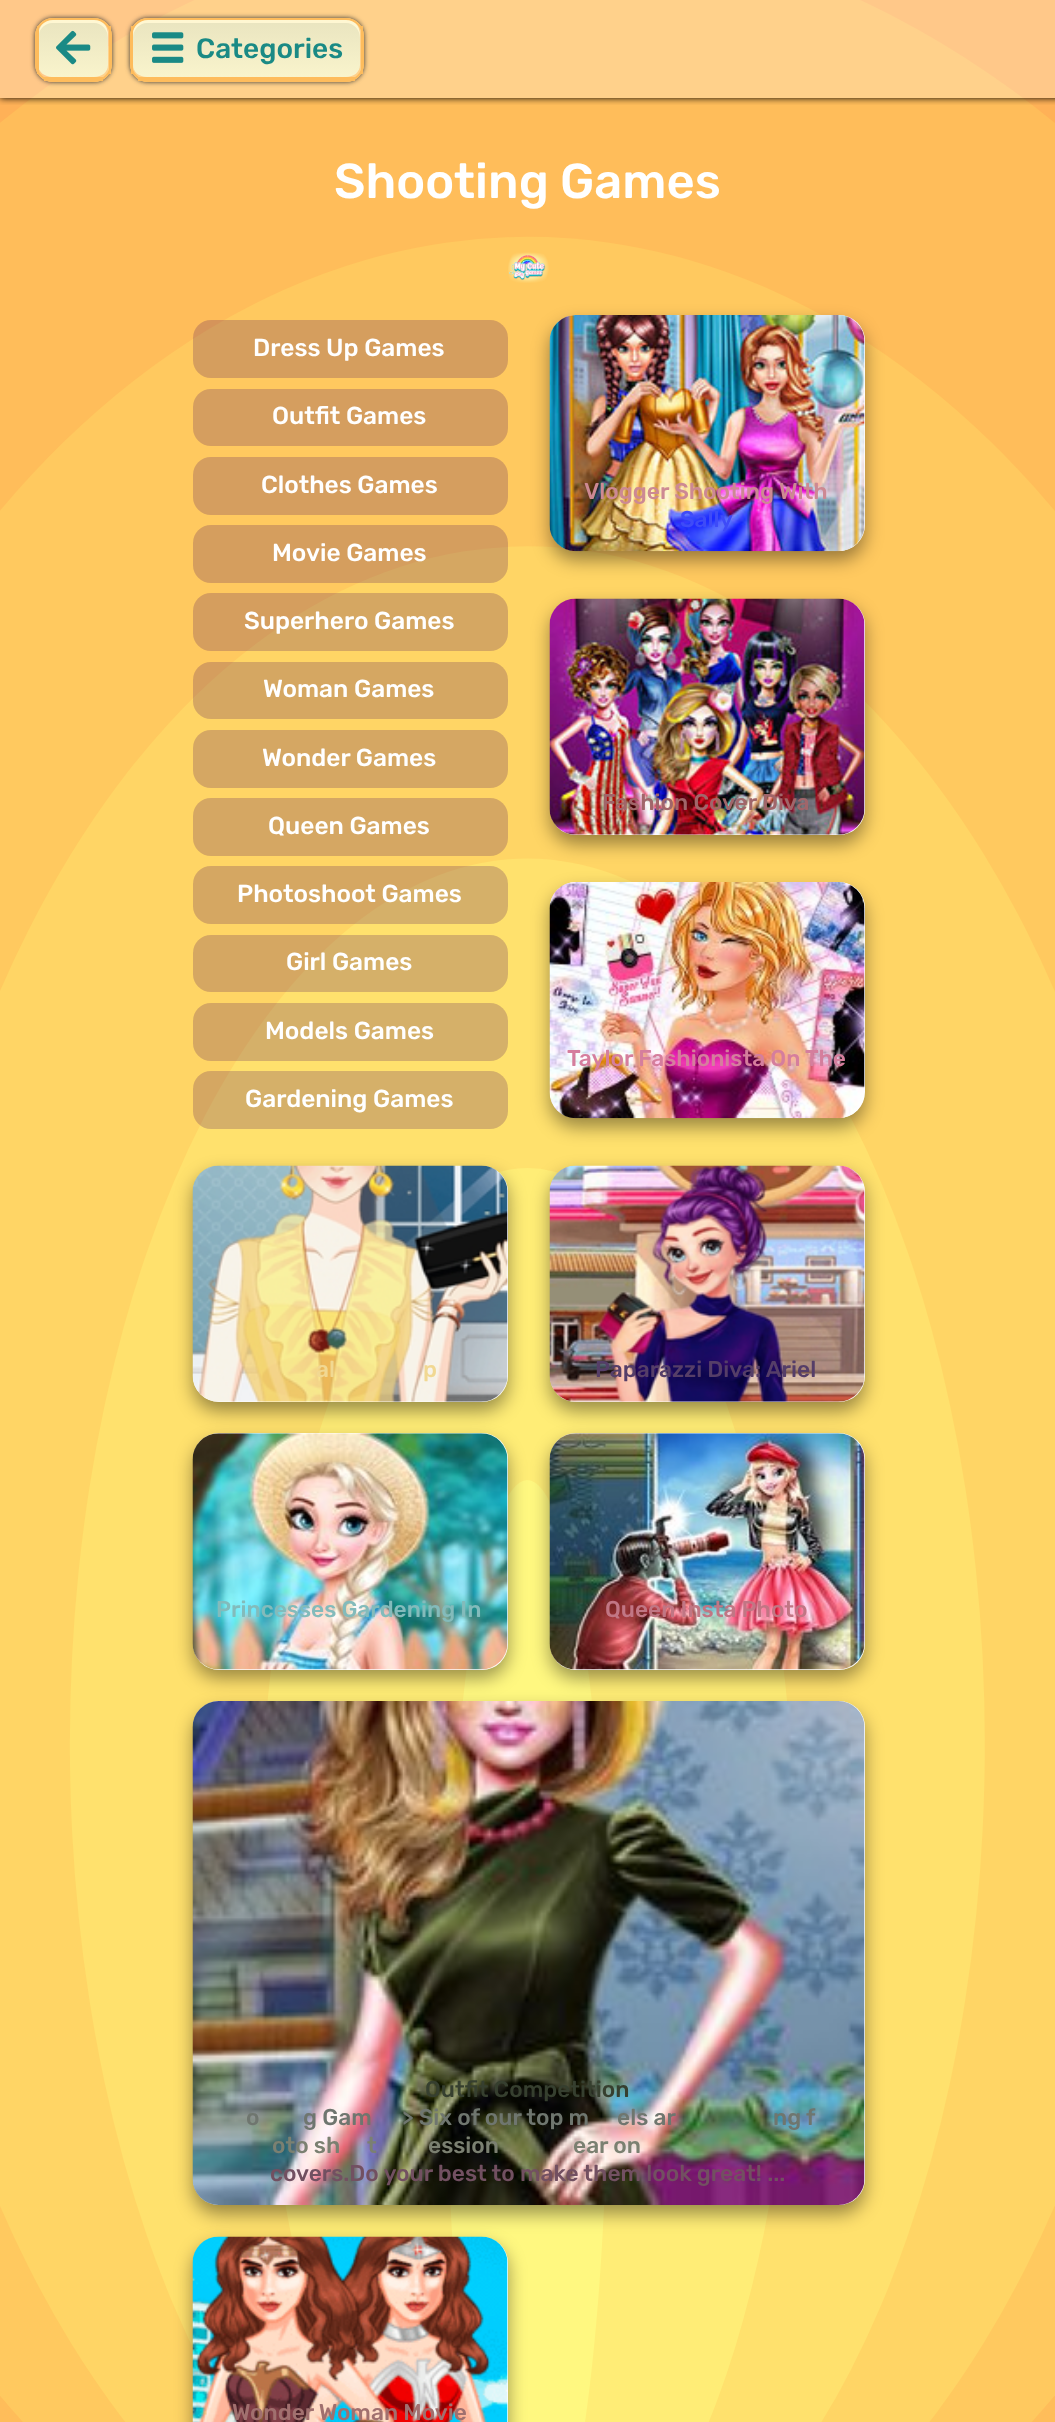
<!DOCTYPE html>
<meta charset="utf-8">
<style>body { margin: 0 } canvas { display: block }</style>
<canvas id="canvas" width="1055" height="2422"></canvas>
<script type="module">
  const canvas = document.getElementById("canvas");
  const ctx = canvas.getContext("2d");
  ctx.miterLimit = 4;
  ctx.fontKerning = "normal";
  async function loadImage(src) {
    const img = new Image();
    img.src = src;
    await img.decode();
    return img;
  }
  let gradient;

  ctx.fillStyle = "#ffffff";
  ctx.fillRect(0, 0, 1055, 2422);
  ctx.drawImage(await loadImage("img1.png"), 0, 0, 1055, 2422);
  ctx.save();
  ctx.beginPath();
  ctx.rect(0, 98, 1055, 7);
  ctx.clip();
  ctx.fillStyle = "#000000";
  ctx.filter = "blur(3.5px)";
  ctx.beginPath();
  ctx.rect(0, 0, 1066, 98);
  ctx.fill();
  ctx.filter = "none";
  ctx.restore();
  ctx.fillStyle = "rgba(255, 255, 255, 0.3)";
  ctx.fillRect(0, 0, 1055, 98);
  ctx.save();
  ctx.beginPath();
  ctx.moveTo(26, 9);
  ctx.lineTo(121, 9);
  ctx.lineTo(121, 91);
  ctx.lineTo(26, 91);
  ctx.closePath();
  ctx.moveTo(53, 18);
  ctx.lineTo(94, 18);
  ctx.bezierCurveTo(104, 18, 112, 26, 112, 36);
  ctx.lineTo(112, 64);
  ctx.bezierCurveTo(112, 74, 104, 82, 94, 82);
  ctx.lineTo(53, 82);
  ctx.bezierCurveTo(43, 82, 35, 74, 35, 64);
  ctx.lineTo(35, 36);
  ctx.bezierCurveTo(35, 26, 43, 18, 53, 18);
  ctx.closePath();
  ctx.clip("evenodd");
  ctx.fillStyle = "#333333";
  ctx.filter = "blur(2.5px)";
  ctx.beginPath();
  ctx.roundRect(35, 18, 77, 64, 18);
  ctx.fill();
  ctx.filter = "none";
  ctx.restore();
  gradient = ctx.createLinearGradient(74, 19, 74, 77);
  gradient.addColorStop(0, "#e9e4bf");
  gradient.addColorStop(1, "#f9f4cc");
  ctx.fillStyle = gradient;
  ctx.beginPath();
  ctx.moveTo(52, 19);
  ctx.lineTo(94, 19);
  ctx.bezierCurveTo(102, 19, 108, 26, 108, 35);
  ctx.lineTo(108, 65);
  ctx.bezierCurveTo(108, 72, 102, 77, 94, 77);
  ctx.lineTo(52, 77);
  ctx.bezierCurveTo(45, 77, 38, 72, 38, 65);
  ctx.lineTo(38, 35);
  ctx.bezierCurveTo(38, 26, 45, 19, 52, 19);
  ctx.closePath();
  ctx.fill();
  ctx.fillStyle = "#fff7d2";
  ctx.beginPath();
  ctx.moveTo(52, 23);
  ctx.lineTo(94, 23);
  ctx.bezierCurveTo(102, 23, 108, 30, 108, 38);
  ctx.lineTo(108, 68);
  ctx.lineTo(108, 65);
  ctx.lineTo(108, 35);
  ctx.bezierCurveTo(108, 26, 102, 19, 94, 19);
  ctx.lineTo(52, 19);
  ctx.bezierCurveTo(45, 19, 39, 26, 39, 34);
  ctx.bezierCurveTo(40, 28, 46, 23, 52, 23);
  ctx.closePath();
  ctx.fill();
  ctx.beginPath();
  ctx.roundRect(36, 19, 75, 62, 17);
  ctx.strokeStyle = "#febc5c";
  ctx.lineWidth = 2;
  ctx.stroke();
  ctx.fillStyle = "#febc5c";
  ctx.fillRect(109, 26, 2, 48);
  ctx.fillRect(44, 77, 59, 4);
  ctx.fillRect(37, 26, 2, 48);
  ctx.drawImage(await loadImage("img2.png"), 56, 30, 35, 35);
  ctx.save();
  ctx.beginPath();
  ctx.moveTo(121, 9);
  ctx.lineTo(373, 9);
  ctx.lineTo(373, 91);
  ctx.lineTo(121, 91);
  ctx.closePath();
  ctx.moveTo(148, 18);
  ctx.lineTo(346, 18);
  ctx.bezierCurveTo(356, 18, 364, 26, 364, 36);
  ctx.lineTo(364, 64);
  ctx.bezierCurveTo(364, 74, 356, 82, 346, 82);
  ctx.lineTo(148, 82);
  ctx.bezierCurveTo(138, 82, 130, 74, 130, 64);
  ctx.lineTo(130, 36);
  ctx.bezierCurveTo(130, 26, 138, 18, 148, 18);
  ctx.closePath();
  ctx.clip("evenodd");
  ctx.fillStyle = "#333333";
  ctx.filter = "blur(2.5px)";
  ctx.beginPath();
  ctx.roundRect(130, 18, 234, 64, 18);
  ctx.fill();
  ctx.filter = "none";
  ctx.restore();
  gradient = ctx.createLinearGradient(247, 19, 247, 77);
  gradient.addColorStop(0, "#e9e4bf");
  gradient.addColorStop(1, "#f9f4cc");
  ctx.fillStyle = gradient;
  ctx.beginPath();
  ctx.moveTo(147, 19);
  ctx.lineTo(346, 19);
  ctx.bezierCurveTo(354, 19, 360, 26, 360, 35);
  ctx.lineTo(360, 65);
  ctx.bezierCurveTo(360, 72, 354, 77, 346, 77);
  ctx.lineTo(147, 77);
  ctx.bezierCurveTo(139, 77, 133, 72, 133, 65);
  ctx.lineTo(133, 35);
  ctx.bezierCurveTo(133, 26, 139, 19, 147, 19);
  ctx.closePath();
  ctx.fill();
  ctx.fillStyle = "#fff7d2";
  ctx.beginPath();
  ctx.moveTo(147, 23);
  ctx.lineTo(346, 23);
  ctx.bezierCurveTo(354, 23, 360, 30, 360, 38);
  ctx.lineTo(360, 68);
  ctx.lineTo(360, 65);
  ctx.lineTo(360, 35);
  ctx.bezierCurveTo(360, 26, 354, 19, 346, 19);
  ctx.lineTo(147, 19);
  ctx.bezierCurveTo(139, 19, 133, 26, 133, 35);
  ctx.lineTo(133, 38);
  ctx.bezierCurveTo(133, 30, 139, 23, 147, 23);
  ctx.closePath();
  ctx.fill();
  ctx.beginPath();
  ctx.roundRect(131, 19, 232, 62, 17);
  ctx.stroke();
  ctx.fillStyle = "#febc5c";
  ctx.fillRect(361, 26, 2, 48);
  ctx.fillRect(138, 77, 217, 4);
  ctx.fillRect(131, 26, 2, 48);
  ctx.drawImage(await loadImage("img3.png"), 152, 32, 32, 31);
  ctx.font = "300 28px Rubik";
  ctx.fillStyle = "#1a8a85";
  ctx.fillText("Categories", 196, 58);
  ctx.font = "300 49px Rubik";
  ctx.fillStyle = "#ffffff";
  ctx.fillText("Shooting Games", 334, 198);
  ctx.drawImage(await loadImage("img4.png"), 508, 252, 41, 31);
  ctx.fillStyle = "rgba(81, 21, 93, 0.24)";
  ctx.beginPath();
  ctx.roundRect(193, 320, 315, 58, 18);
  ctx.fill();
  ctx.font = "300 24.5px Rubik";
  ctx.fillStyle = "#ffffff";
  ctx.fillText("Dress Up Games", 253, 356);
  ctx.fillStyle = "#d59e5f";
  ctx.beginPath();
  ctx.roundRect(193, 389, 315, 57, 18);
  ctx.fill();
  ctx.fillStyle = "#ffffff";
  ctx.fillText("Outfit Games", 272, 424);
  ctx.fillStyle = "#d59e5f";
  ctx.beginPath();
  ctx.roundRect(193, 457, 315, 58, 18);
  ctx.fill();
  ctx.fillStyle = "#ffffff";
  ctx.fillText("Clothes Games", 261, 493);
  ctx.fillStyle = "rgba(81, 21, 93, 0.24)";
  ctx.beginPath();
  ctx.roundRect(193, 525, 315, 58, 18);
  ctx.fill();
  ctx.fillStyle = "#ffffff";
  ctx.fillText("Movie Games", 272, 561);
  ctx.fillStyle = "rgba(81, 21, 93, 0.24)";
  ctx.beginPath();
  ctx.roundRect(193, 593, 315, 58, 18);
  ctx.fill();
  ctx.fillStyle = "#ffffff";
  ctx.fillText("Superhero Games", 244, 629);
  ctx.fillStyle = "rgba(81, 21, 93, 0.24)";
  ctx.beginPath();
  ctx.roundRect(193, 662, 315, 57, 18);
  ctx.fill();
  ctx.fillStyle = "#ffffff";
  ctx.fillText("Woman Games", 263, 697);
  ctx.fillStyle = "#d5a763";
  ctx.beginPath();
  ctx.roundRect(193, 730, 315, 58, 18);
  ctx.fill();
  ctx.fillStyle = "#ffffff";
  ctx.fillText("Wonder Games", 262, 766);
  ctx.fillStyle = "#d5a763";
  ctx.beginPath();
  ctx.roundRect(193, 798, 315, 58, 18);
  ctx.fill();
  ctx.fillStyle = "#ffffff";
  ctx.fillText("Queen Games", 268, 834);
  ctx.fillStyle = "rgba(81, 21, 93, 0.24)";
  ctx.beginPath();
  ctx.roundRect(193, 866, 315, 58, 18);
  ctx.fill();
  ctx.fillStyle = "#ffffff";
  ctx.fillText("Photoshoot Games", 237, 902);
  ctx.fillStyle = "rgba(81, 21, 93, 0.24)";
  ctx.beginPath();
  ctx.roundRect(193, 935, 315, 57, 18);
  ctx.fill();
  ctx.fillStyle = "#ffffff";
  ctx.fillText("Girl Games", 286, 970);
  ctx.fillStyle = "rgba(81, 21, 93, 0.24)";
  ctx.beginPath();
  ctx.roundRect(193, 1003, 315, 58, 18);
  ctx.fill();
  ctx.fillStyle = "#ffffff";
  ctx.fillText("Models Games", 265, 1039);
  ctx.fillStyle = "rgba(81, 21, 93, 0.24)";
  ctx.beginPath();
  ctx.roundRect(193, 1071, 315, 58, 18);
  ctx.fill();
  ctx.fillStyle = "#ffffff";
  ctx.fillText("Gardening Games", 245, 1107);
  ctx.fillStyle = "rgba(0, 0, 0, 0.4)";
  ctx.filter = "blur(9px)";
  ctx.beginPath();
  ctx.roundRect(550, 324, 315, 236, 26);
  ctx.fill();
  ctx.filter = "none";
  ctx.fillStyle = "#ffffff";
  ctx.beginPath();
  ctx.roundRect(550, 315, 315, 236, 26);
  ctx.fill();
  ctx.drawImage(await loadImage("img5.png"), 549, 315, 316, 237);
  ctx.font = "300 22.75px Rubik";
  ctx.fillStyle = "#cd8993";
  ctx.fillText("Vlogger Shooting With", 584, 499);
  ctx.fillStyle = "#3e4bf8";
  ctx.fillText("Sally", 680, 527);
  ctx.fillStyle = "rgba(0, 0, 0, 0.4)";
  ctx.filter = "blur(9px)";
  ctx.beginPath();
  ctx.roundRect(550, 607, 315, 237, 26);
  ctx.fill();
  ctx.filter = "none";
  ctx.fillStyle = "#ffffff";
  ctx.beginPath();
  ctx.roundRect(550, 599, 315, 236, 26);
  ctx.fill();
  ctx.drawImage(await loadImage("img6.png"), 549, 598, 316, 237);
  ctx.fillStyle = "#a1666a";
  ctx.fillText("Fashion Cover Diva", 602, 810);
  ctx.fillStyle = "rgba(0, 0, 0, 0.4)";
  ctx.filter = "blur(9px)";
  ctx.beginPath();
  ctx.roundRect(550, 891, 315, 236, 26);
  ctx.fill();
  ctx.filter = "none";
  ctx.fillStyle = "#ffffff";
  ctx.beginPath();
  ctx.roundRect(550, 882, 315, 236, 26);
  ctx.fill();
  ctx.drawImage(await loadImage("img7.png"), 549, 882, 316, 237);
  ctx.fillStyle = "#d57e9d";
  ctx.fillText("Taylor Fashionista On The", 567, 1066);
  ctx.fillStyle = "rgba(0, 0, 0, 0.4)";
  ctx.filter = "blur(9px)";
  ctx.beginPath();
  ctx.roundRect(193, 1174, 315, 237, 26);
  ctx.fill();
  ctx.filter = "none";
  ctx.fillStyle = "#ffffff";
  ctx.beginPath();
  ctx.roundRect(193, 1166, 315, 236, 26);
  ctx.fill();
  ctx.drawImage(await loadImage("img8.png"), 192, 1165, 316, 237);
  ctx.fillStyle = "#f1d892";
  ctx.fillText("al", 316, 1377);
  ctx.fillText("p", 423, 1377);
  ctx.fillStyle = "rgba(0, 0, 0, 0.4)";
  ctx.filter = "blur(9px)";
  ctx.beginPath();
  ctx.roundRect(550, 1174, 315, 237, 26);
  ctx.fill();
  ctx.filter = "none";
  ctx.fillStyle = "#ffffff";
  ctx.beginPath();
  ctx.roundRect(550, 1166, 315, 236, 26);
  ctx.fill();
  ctx.drawImage(await loadImage("img9.png"), 549, 1165, 316, 237);
  ctx.fillStyle = "#553e68";
  ctx.fillText("Paparazzi Diva: Ariel", 595, 1377);
  ctx.fillStyle = "rgba(0, 0, 0, 0.4)";
  ctx.filter = "blur(9px)";
  ctx.beginPath();
  ctx.roundRect(193, 1442, 315, 236, 26);
  ctx.fill();
  ctx.filter = "none";
  ctx.fillStyle = "#ffffff";
  ctx.beginPath();
  ctx.roundRect(193, 1433, 315, 237, 26);
  ctx.fill();
  ctx.drawImage(await loadImage("img10.png"), 192, 1433, 316, 237);
  ctx.fillStyle = "#83bbbb";
  ctx.fillText("Princesses Gardening In", 216, 1617);
  ctx.fillStyle = "rgba(0, 0, 0, 0.4)";
  ctx.filter = "blur(9px)";
  ctx.beginPath();
  ctx.roundRect(193, 1710, 672, 504, 26);
  ctx.fill();
  ctx.filter = "none";
  ctx.fillStyle = "#ffffff";
  ctx.beginPath();
  ctx.roundRect(193, 1701, 672, 504, 26);
  ctx.fill();
  ctx.drawImage(await loadImage("img12.png"), 192, 1701, 673, 504);
  ctx.fillStyle = "rgba(0, 0, 0, 0.4)";
  ctx.filter = "blur(9px)";
  ctx.beginPath();
  ctx.roundRect(550, 1442, 315, 236, 26);
  ctx.fill();
  ctx.filter = "none";
  ctx.fillStyle = "#ffffff";
  ctx.beginPath();
  ctx.roundRect(550, 1433, 315, 237, 26);
  ctx.fill();
  ctx.drawImage(await loadImage("img11.png"), 549, 1433, 316, 237);
  ctx.fillStyle = "#c17684";
  ctx.fillText("Queen Insta Photo", 605, 1617);
  ctx.fillStyle = "#363f2f";
  ctx.fillText("Outfit Competition", 425, 2097);
  ctx.fillStyle = "#6f766f";
  ctx.fillText("o", 246, 2125);
  ctx.fillText("g Gam", 303, 2125);
  ctx.fillText("> Six of our top m", 402, 2125);
  ctx.fillText("els ar", 617, 2125);
  ctx.fillText("ng f", 773, 2125);
  ctx.fillStyle = "#7b8071";
  ctx.fillText("oto sh", 272, 2153);
  ctx.fillText("t", 367, 2153);
  ctx.fillText("ession", 428, 2153);
  ctx.fillText("ear on", 573, 2153);
  ctx.fillStyle = "#725061";
  ctx.fillText("covers.Do your best to make them look great! ...", 270, 2181);
  ctx.fillStyle = "rgba(0, 0, 0, 0.4)";
  ctx.filter = "blur(9px)";
  ctx.beginPath();
  ctx.roundRect(193, 2245, 315, 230, 26);
  ctx.fill();
  ctx.filter = "none";
  ctx.fillStyle = "#ffffff";
  ctx.beginPath();
  ctx.roundRect(193, 2237, 315, 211, 26);
  ctx.fill();
  ctx.drawImage(await loadImage("img13.png"), 192, 2236, 316, 186);
  ctx.fillStyle = "#a1706f";
  ctx.fillText("Wonder Woman Movie", 232, 2420);
</script>
